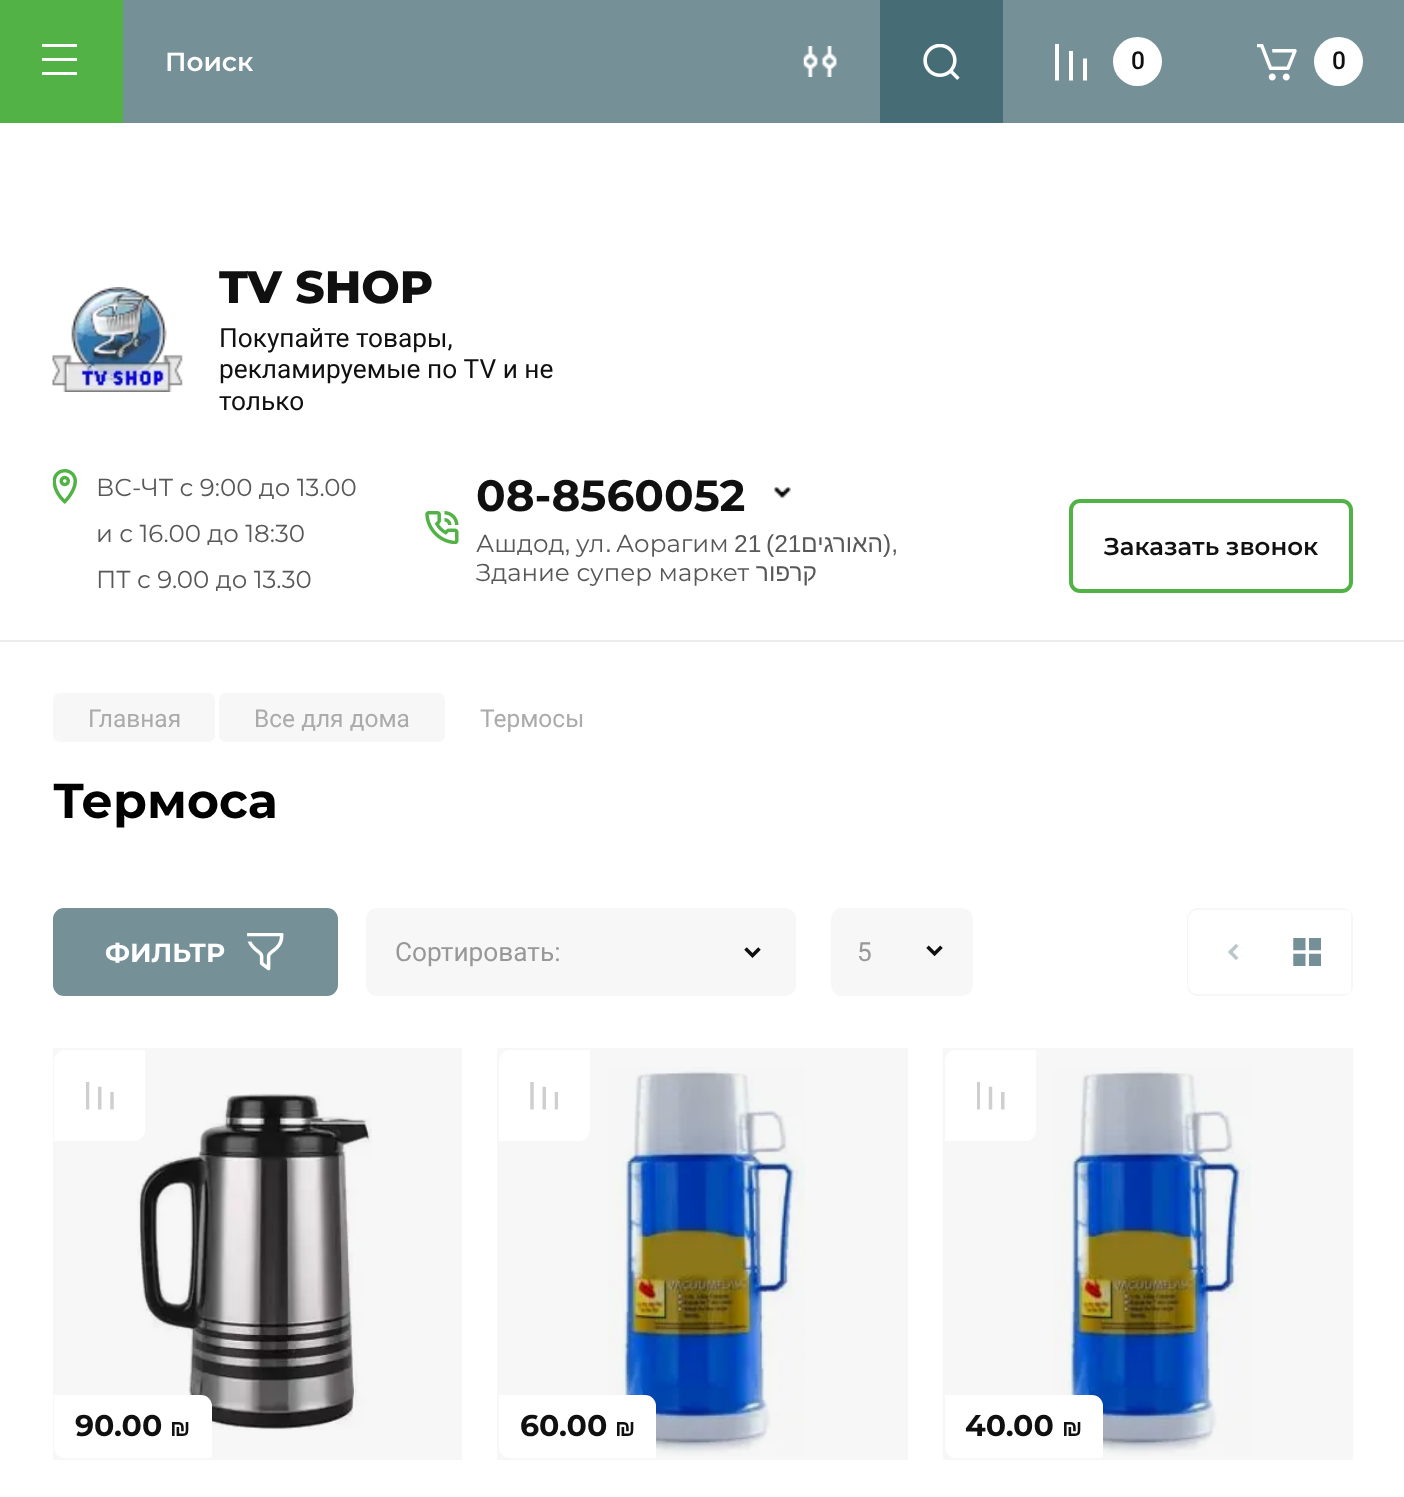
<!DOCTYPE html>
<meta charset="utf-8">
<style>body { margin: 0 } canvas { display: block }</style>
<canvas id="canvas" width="1404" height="1497"></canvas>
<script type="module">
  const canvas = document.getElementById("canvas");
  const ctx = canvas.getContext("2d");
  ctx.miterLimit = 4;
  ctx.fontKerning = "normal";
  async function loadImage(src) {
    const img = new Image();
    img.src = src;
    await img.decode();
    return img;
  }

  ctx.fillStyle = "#ffffff";
  ctx.fillRect(0, 0, 1404, 1497);
  ctx.fillStyle = "#53b246";
  ctx.fillRect(0, 0, 123, 123);
  ctx.fillStyle = "#ffffff";
  ctx.beginPath();
  ctx.moveTo(42, 44);
  ctx.lineTo(77, 44);
  ctx.lineTo(77, 47);
  ctx.lineTo(42, 47);
  ctx.closePath();
  ctx.moveTo(42, 58);
  ctx.lineTo(77, 58);
  ctx.lineTo(77, 61);
  ctx.lineTo(42, 61);
  ctx.closePath();
  ctx.moveTo(77, 72);
  ctx.lineTo(42, 72);
  ctx.lineTo(42, 75);
  ctx.lineTo(77, 75);
  ctx.closePath();
  ctx.fill();
  ctx.fillStyle = "#759096";
  ctx.fillRect(123, 0, 757, 123);
  ctx.font = "600 26.25px Montserrat";
  ctx.fillStyle = "#ffffff";
  ctx.fillText("Поиск", 165, 71);
  ctx.fillStyle = "#466d75";
  ctx.fillRect(880, 0, 123, 123);
  ctx.drawImage(await loadImage("img1.png"), 923, 44, 37, 36);
  ctx.drawImage(await loadImage("img2.png"), 803, 46, 34, 31);
  ctx.fillStyle = "#759096";
  ctx.fillRect(1003, 0, 401, 123);
  ctx.save();
  ctx.beginPath();
  ctx.rect(1055, 44, 32, 37);
  ctx.clip();
  ctx.fillStyle = "#ffffff";
  ctx.beginPath();
  ctx.moveTo(1087, 80.5);
  ctx.lineTo(1087, 58.5);
  ctx.lineTo(1083, 58.5);
  ctx.lineTo(1083, 80.5);
  ctx.closePath();
  ctx.moveTo(1073, 51);
  ctx.lineTo(1073, 80.5);
  ctx.lineTo(1069, 80.5);
  ctx.lineTo(1069, 51);
  ctx.closePath();
  ctx.moveTo(1059, 43.5);
  ctx.lineTo(1059, 80.5);
  ctx.lineTo(1055, 80.5);
  ctx.lineTo(1055, 43.5);
  ctx.closePath();
  ctx.fill();
  ctx.restore();
  ctx.fillStyle = "#ffffff";
  ctx.beginPath();
  ctx.arc(1137.5, 61.5, 24.5, 0, Math.PI * 2);
  ctx.fill();
  ctx.font = "500 24.5px Roboto";
  ctx.fillStyle = "#101010";
  ctx.fillText("0", 1131, 69);
  ctx.drawImage(await loadImage("img3.png"), 1257, 44, 40, 37);
  ctx.fillStyle = "#ffffff";
  ctx.beginPath();
  ctx.arc(1338.5, 61.5, 24.5, 0, Math.PI * 2);
  ctx.fill();
  ctx.fillStyle = "#101010";
  ctx.fillText("0", 1332, 69);
  ctx.fillStyle = "#ebebeb";
  ctx.fillRect(0, 640, 1404, 2);
  ctx.drawImage(await loadImage("img4.png"), 52, 287, 131, 105);
  ctx.font = "800 45.5px Montserrat";
  ctx.fillStyle = "#101010";
  ctx.fillText("TV SHOP", 219, 303);
  ctx.font = "26.25px Roboto";
  ctx.fillText("Покупайте товары,", 219, 347);
  ctx.fillText("рекламируемые по TV и не", 219, 378);
  ctx.fillText("только", 219, 410);
  ctx.drawImage(await loadImage("img5.png"), 53, 469, 24, 35);
  ctx.font = "24.5px Montserrat";
  ctx.fillStyle = "#585858";
  ctx.fillText("ВС-ЧТ с 9:00 до 13.00", 96, 496);
  ctx.fillText("и с 16.00 до 18:30", 96, 542);
  ctx.fillText("ПТ с 9.00 до 13.30", 96, 588);
  ctx.drawImage(await loadImage("img6.png"), 425, 511, 34, 33);
  ctx.font = "bold 43.75px Montserrat";
  ctx.fillStyle = "#101010";
  ctx.fillText("08-8560052", 476, 511);
  ctx.font = "24.5px Montserrat";
  ctx.fillStyle = "#585858";
  ctx.fillText("Ашдод", 476, 552);
  ctx.font = "24.5px Liberation Sans";
  ctx.fillText(",", 564, 552);
  ctx.font = "24.5px Montserrat";
  ctx.fillText("ул", 576, 552);
  ctx.font = "24.5px Liberation Sans";
  ctx.fillText(".", 605, 552);
  ctx.font = "24.5px Montserrat";
  ctx.fillText("Аорагим", 616, 552);
  ctx.font = "24.5px Liberation Sans";
  ctx.fillText("21", 734, 552);
  ctx.fillText("(21", 766, 552);
  ctx.direction = "rtl";
  ctx.fillText("האורגים", 883, 552);
  ctx.direction = "ltr";
  ctx.fillText("),", 883, 552);
  ctx.font = "24.5px Montserrat";
  ctx.fillText("Здание супер маркет", 476, 581);
  ctx.direction = "rtl";
  ctx.font = "24.5px Liberation Sans";
  ctx.fillText("קרפור", 817, 581);
  ctx.drawImage(await loadImage("img7.png"), 774, 487, 17, 12);
  ctx.beginPath();
  ctx.roundRect(1071, 501, 280, 90, 9);
  ctx.strokeStyle = "#53b246";
  ctx.lineWidth = 4;
  ctx.stroke();
  ctx.direction = "ltr";
  ctx.font = "600 24.5px Montserrat";
  ctx.fillStyle = "#101010";
  ctx.fillText("Заказать звонок", 1104, 555);
  ctx.fillStyle = "#f7f7f7";
  ctx.beginPath();
  ctx.roundRect(53, 693, 162, 49, 7);
  ctx.fill();
  ctx.font = "24.5px Roboto";
  ctx.fillStyle = "#ababab";
  ctx.fillText("Главная", 88, 727);
  ctx.fillStyle = "#f7f7f7";
  ctx.beginPath();
  ctx.roundRect(219, 693, 226, 49, 7);
  ctx.fill();
  ctx.fillStyle = "#ababab";
  ctx.fillText("Все для дома", 254, 727);
  ctx.fillText("Термосы", 480, 727);
  ctx.font = "bold 49px Montserrat";
  ctx.fillStyle = "#000000";
  ctx.fillText("Термоса", 53, 818);
  ctx.fillStyle = "#759096";
  ctx.beginPath();
  ctx.roundRect(55, 910, 281, 84, 9);
  ctx.fill();
  ctx.strokeStyle = "#759096";
  ctx.stroke();
  ctx.font = "bold 26.25px Montserrat";
  ctx.fillStyle = "#ffffff";
  ctx.fillText("ФИЛЬТР", 105, 962);
  ctx.drawImage(await loadImage("img8.png"), 247, 933, 37, 38);
  ctx.fillStyle = "#f7f7f7";
  ctx.beginPath();
  ctx.roundRect(366, 908, 430, 88, 11);
  ctx.fill();
  ctx.font = "26.25px Roboto";
  ctx.fillStyle = "#989898";
  ctx.fillText("Сортировать:", 395, 961);
  ctx.beginPath();
  ctx.moveTo(759.5, 948.5);
  ctx.lineTo(752.5, 955.5);
  ctx.lineTo(745.5, 948.5);
  ctx.strokeStyle = "#101010";
  ctx.lineWidth = 3.5;
  ctx.stroke();
  ctx.fillStyle = "#f7f7f7";
  ctx.beginPath();
  ctx.roundRect(831, 908, 142, 88, 11);
  ctx.fill();
  ctx.drawImage(await loadImage("img9.png"), 926, 945, 17, 12);
  ctx.fillStyle = "#989898";
  ctx.fillText("5", 857, 961);
  ctx.beginPath();
  ctx.roundRect(1188, 909, 164, 86, 10);
  ctx.strokeStyle = "#f4f6f7";
  ctx.lineWidth = 2;
  ctx.stroke();
  ctx.fillStyle = "#ffffff";
  ctx.beginPath();
  ctx.roundRect(1188, 910, 88, 84, [9, 0, 0, 9]);
  ctx.fill();
  ctx.drawImage(await loadImage("img10.png"), 1228, 944, 11, 16);
  ctx.drawImage(await loadImage("img11.png"), 1293, 938, 28, 28);
  ctx.beginPath();
  ctx.roundRect(1339, 910, 12, 84, [11, 9, 9, 11]);
  ctx.fill();
  ctx.drawImage(await loadImage("img13.png"), 137, 1093, 235, 337);
  ctx.fillStyle = "rgba(0, 0, 0, 0.03)";
  ctx.fillRect(53, 1048, 409, 412);
  ctx.fillStyle = "#ffffff";
  ctx.beginPath();
  ctx.roundRect(54, 1050, 91, 91, [11, 0, 11, 0]);
  ctx.fill();
  ctx.drawImage(await loadImage("img12.png"), 86, 1082, 28, 28);
  ctx.beginPath();
  ctx.roundRect(54, 1395, 158, 63, [0, 11, 0, 11]);
  ctx.fill();
  ctx.font = "bold 30px Montserrat";
  ctx.fillStyle = "#101010";
  ctx.fillText("90.00", 75, 1436);
  ctx.font = "bold 23px Liberation Sans";
  ctx.fillText("₪", 170, 1436);
  ctx.drawImage(await loadImage("img15.png"), 608, 1067, 197, 389);
  ctx.fillStyle = "rgba(0, 0, 0, 0.03)";
  ctx.fillRect(497, 1048, 411, 412);
  ctx.fillStyle = "#ffffff";
  ctx.beginPath();
  ctx.roundRect(499, 1050, 91, 91, [11, 0, 11, 0]);
  ctx.fill();
  ctx.drawImage(await loadImage("img14.png"), 530, 1082, 28, 28);
  ctx.beginPath();
  ctx.roundRect(499, 1395, 157, 63, [0, 11, 0, 11]);
  ctx.fill();
  ctx.font = "bold 30px Montserrat";
  ctx.fillStyle = "#101010";
  ctx.fillText("60.00", 520, 1436);
  ctx.font = "bold 23px Liberation Sans";
  ctx.fillText("₪", 615, 1436);
  ctx.drawImage(await loadImage("img17.png"), 1054, 1067, 197, 389);
  ctx.fillStyle = "rgba(0, 0, 0, 0.03)";
  ctx.fillRect(943, 1048, 410, 412);
  ctx.fillStyle = "#ffffff";
  ctx.beginPath();
  ctx.roundRect(945, 1050, 91, 91, [11, 0, 11, 0]);
  ctx.fill();
  ctx.drawImage(await loadImage("img16.png"), 977, 1082, 28, 28);
  ctx.beginPath();
  ctx.roundRect(945, 1395, 158, 63, [0, 11, 0, 11]);
  ctx.fill();
  ctx.font = "bold 30px Montserrat";
  ctx.fillStyle = "#101010";
  ctx.fillText("40.00", 965, 1436);
  ctx.font = "bold 23px Liberation Sans";
  ctx.fillText("₪", 1062, 1436);
</script>
